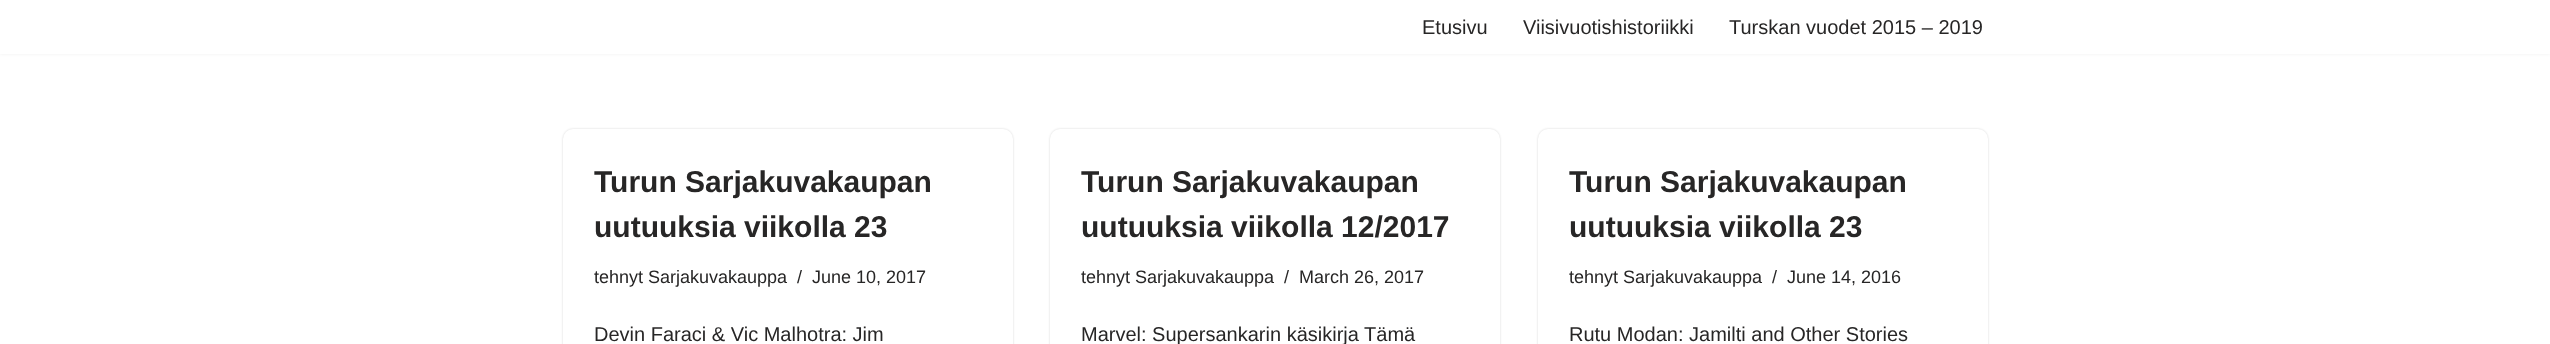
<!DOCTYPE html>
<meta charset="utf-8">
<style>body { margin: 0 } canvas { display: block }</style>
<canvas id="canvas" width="2550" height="344"></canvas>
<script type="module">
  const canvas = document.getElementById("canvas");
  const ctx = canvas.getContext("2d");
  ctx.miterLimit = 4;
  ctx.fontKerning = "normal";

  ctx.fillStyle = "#ffffff";
  ctx.fillRect(0, 0, 2550, 344);
  ctx.fillStyle = "rgba(0, 0, 0, 0.1)";
  ctx.filter = "blur(2px)";
  ctx.beginPath();
  ctx.rect(0, -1, 2550, 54);
  ctx.fill();
  ctx.filter = "none";
  ctx.fillStyle = "#ffffff";
  ctx.fillRect(0, 0, 2550, 54);
  ctx.font = "20px Liberation Sans";
  ctx.fillStyle = "#272626";
  ctx.fillText("Etusivu", 1422, 34);
  ctx.fillText("Viisivuotishistoriikki", 1523, 34);
  ctx.fillText("Turskan vuodet 2015 – 2019", 1729, 34);
  ctx.fillStyle = "rgba(0, 0, 0, 0.15)";
  ctx.filter = "blur(1px)";
  ctx.beginPath();
  ctx.roundRect(563, 129, 450, 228, 10);
  ctx.fill();
  ctx.filter = "none";
  ctx.fillStyle = "#ffffff";
  ctx.beginPath();
  ctx.roundRect(563, 129, 450, 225, 10);
  ctx.fill();
  ctx.font = "bold 30px Liberation Sans";
  ctx.fillStyle = "#272626";
  ctx.fillText("Turun Sarjakuvakaupan", 594, 192);
  ctx.fillText("uutuuksia viikolla 23", 594, 237);
  ctx.font = "18px Liberation Sans";
  ctx.fillText("tehnyt Sarjakuvakauppa", 594, 283);
  ctx.fillText("/", 797, 283);
  ctx.fillText("June 10, 2017", 812, 283);
  ctx.font = "20px Liberation Sans";
  ctx.fillText("Devin Faraci & Vic Malhotra: Jim", 594, 341);
  ctx.fillStyle = "rgba(0, 0, 0, 0.15)";
  ctx.filter = "blur(1px)";
  ctx.beginPath();
  ctx.roundRect(1050, 129, 450, 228, 10);
  ctx.fill();
  ctx.filter = "none";
  ctx.fillStyle = "#ffffff";
  ctx.beginPath();
  ctx.roundRect(1050, 129, 450, 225, 10);
  ctx.fill();
  ctx.font = "bold 30px Liberation Sans";
  ctx.fillStyle = "#272626";
  ctx.fillText("Turun Sarjakuvakaupan", 1081, 192);
  ctx.fillText("uutuuksia viikolla 12/2017", 1081, 237);
  ctx.font = "18px Liberation Sans";
  ctx.fillText("tehnyt Sarjakuvakauppa", 1081, 283);
  ctx.fillText("/", 1284, 283);
  ctx.fillText("March 26, 2017", 1299, 283);
  ctx.font = "20px Liberation Sans";
  ctx.fillText("Marvel: Supersankarin käsikirja Tämä", 1081, 341);
  ctx.fillStyle = "rgba(0, 0, 0, 0.15)";
  ctx.filter = "blur(1px)";
  ctx.beginPath();
  ctx.roundRect(1538, 129, 450, 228, 10);
  ctx.fill();
  ctx.filter = "none";
  ctx.fillStyle = "#ffffff";
  ctx.beginPath();
  ctx.roundRect(1538, 129, 450, 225, 10);
  ctx.fill();
  ctx.font = "bold 30px Liberation Sans";
  ctx.fillStyle = "#272626";
  ctx.fillText("Turun Sarjakuvakaupan", 1569, 192);
  ctx.fillText("uutuuksia viikolla 23", 1569, 237);
  ctx.font = "18px Liberation Sans";
  ctx.fillText("tehnyt Sarjakuvakauppa", 1569, 283);
  ctx.fillText("/", 1772, 283);
  ctx.fillText("June 14, 2016", 1787, 283);
  ctx.font = "20px Liberation Sans";
  ctx.fillText("Rutu Modan: Jamilti and Other Stories", 1569, 341);
</script>
